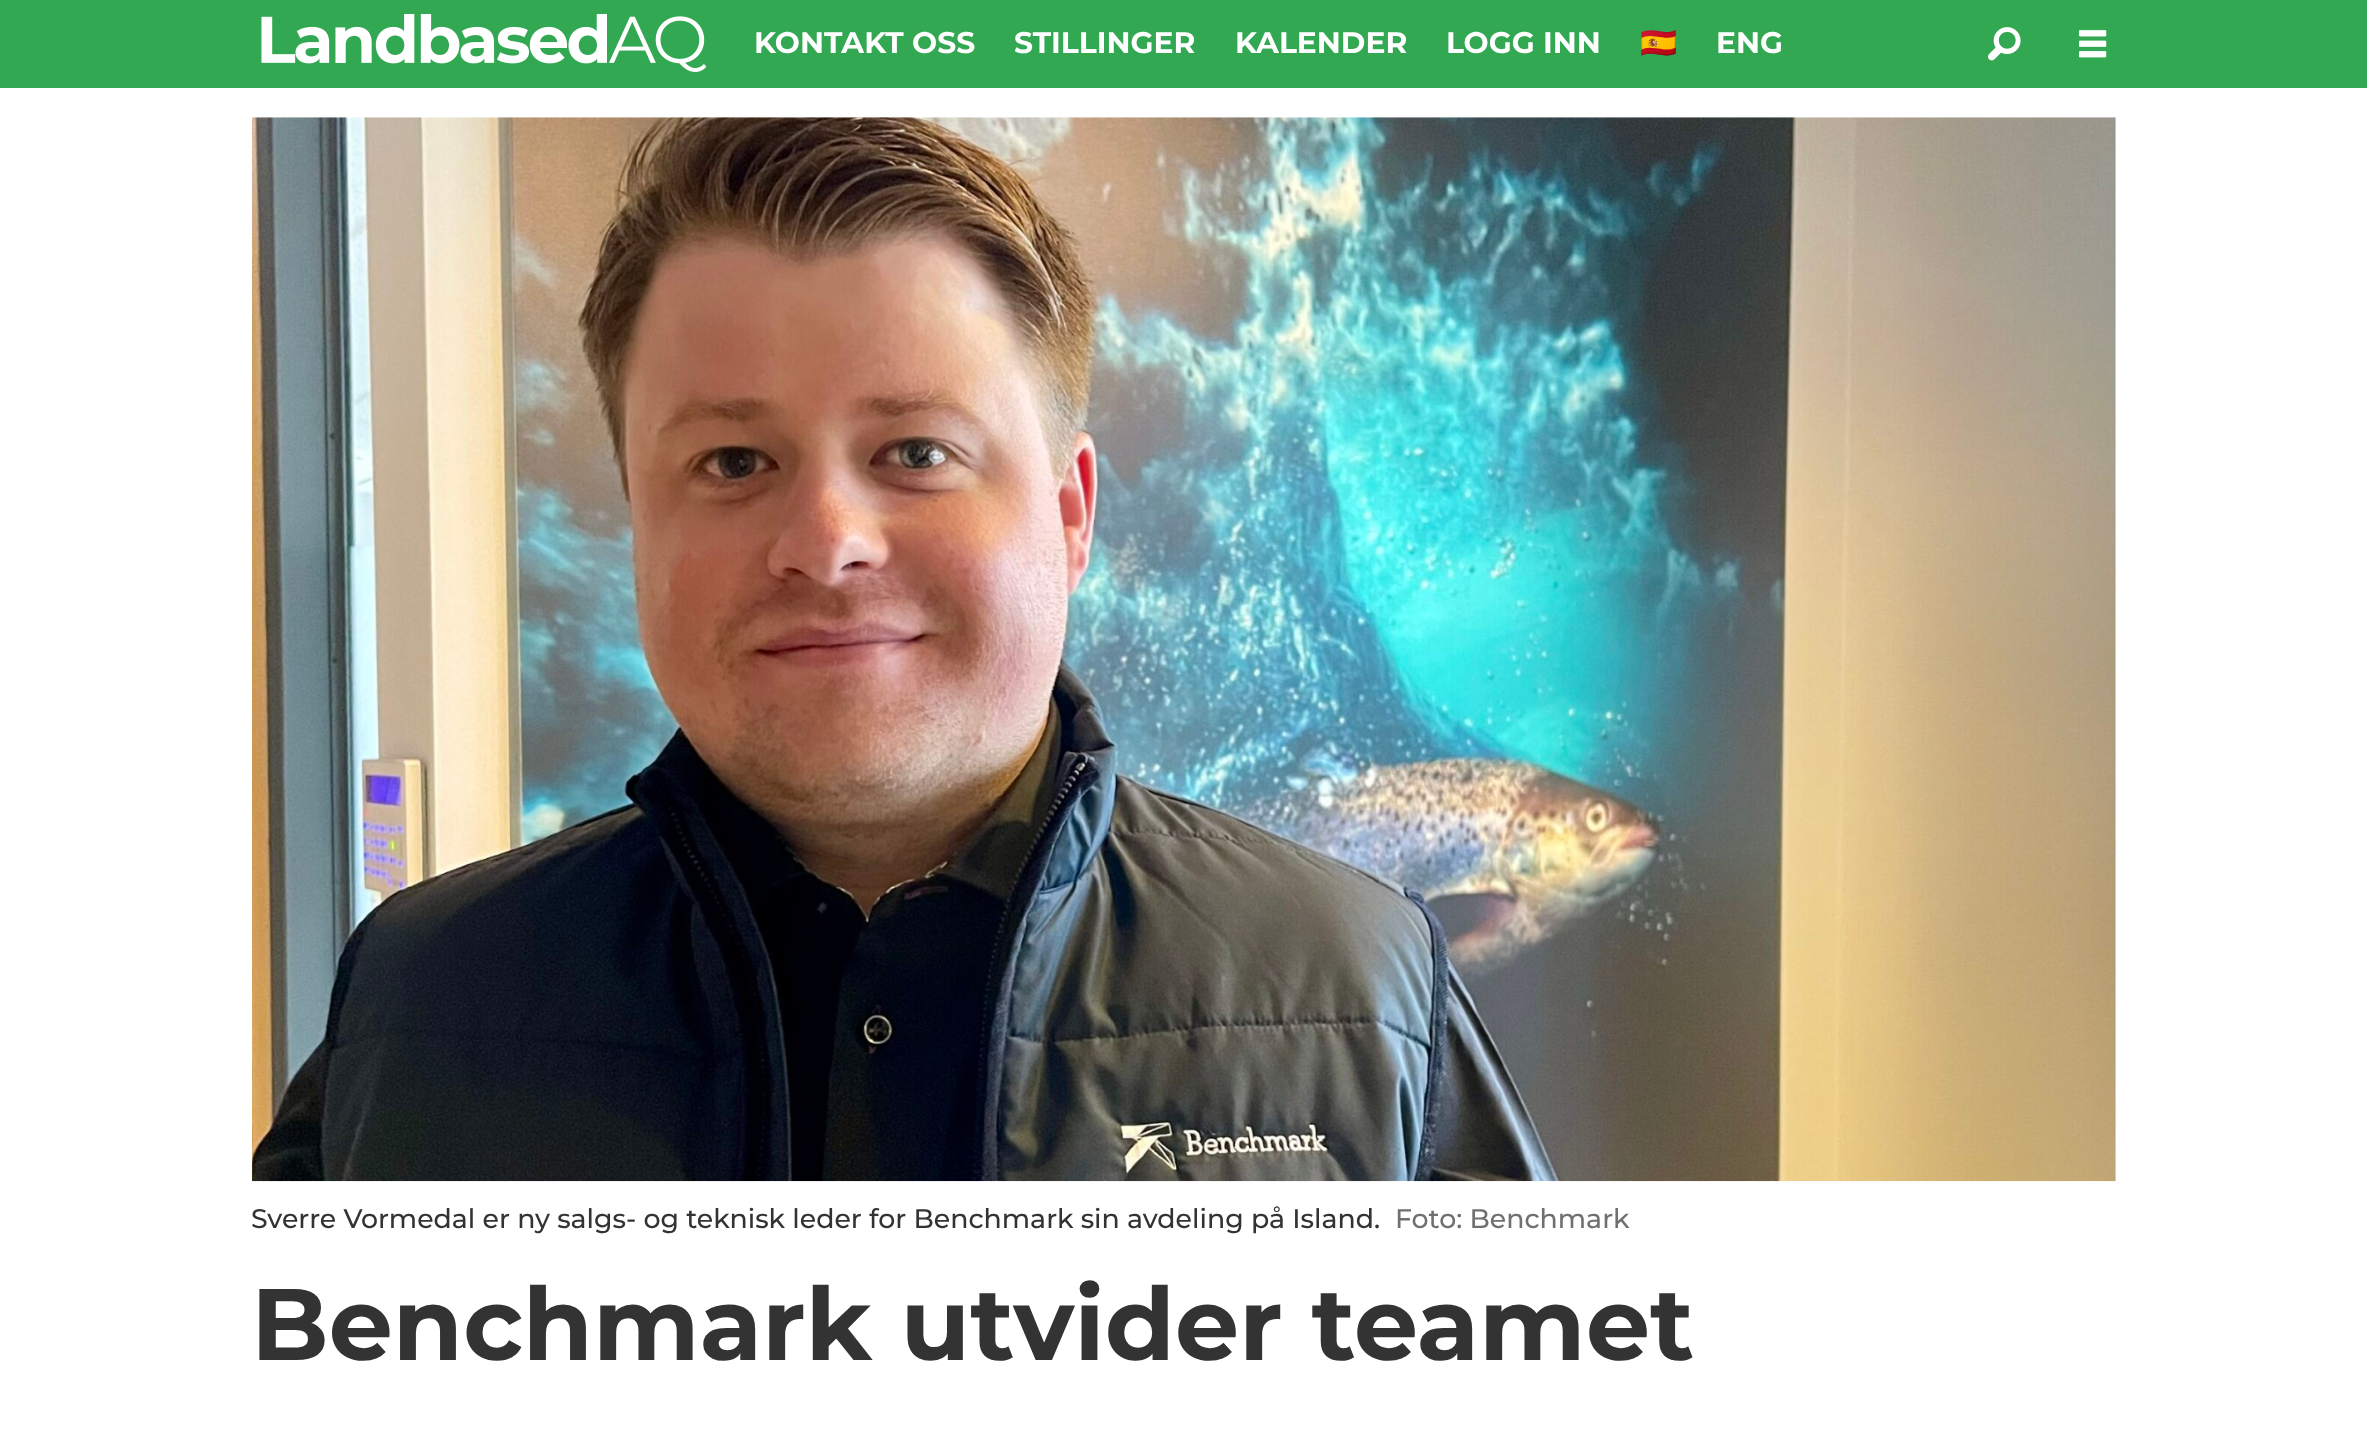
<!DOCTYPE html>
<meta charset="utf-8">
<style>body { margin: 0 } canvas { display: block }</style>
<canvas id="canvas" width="2367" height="1434"></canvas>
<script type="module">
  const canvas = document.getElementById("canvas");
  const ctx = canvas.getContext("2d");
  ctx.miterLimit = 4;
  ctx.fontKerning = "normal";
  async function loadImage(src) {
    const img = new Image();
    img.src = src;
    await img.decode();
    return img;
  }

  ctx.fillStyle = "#ffffff";
  ctx.fillRect(0, 0, 2367, 1434);
  ctx.fillStyle = "#32a852";
  ctx.fillRect(0, 0, 2367, 88);
  ctx.drawImage(await loadImage("img1.png"), 261, 14, 446, 58);
  ctx.font = "bold 29.75px Montserrat";
  ctx.fillStyle = "#ffffff";
  ctx.fillText("KONTAKT OSS", 754, 53);
  ctx.fillText("STILLINGER", 1014, 53);
  ctx.fillText("KALENDER", 1235, 53);
  ctx.fillText("LOGG INN", 1446, 53);
  ctx.font = "bold 29.75px Noto Color Emoji";
  ctx.fillText("🇪🇸", 1640, 53);
  ctx.font = "bold 29.75px Montserrat";
  ctx.fillText("ENG", 1716, 53);
  ctx.drawImage(await loadImage("img2.png"), 1988, 27, 33, 34);
  ctx.drawImage(await loadImage("img3.png"), 2079, 30, 28, 28);
  ctx.drawImage(await loadImage("img4.png"), 252, 117, 1864, 1065);
  ctx.font = "500 26.8px Montserrat";
  ctx.fillStyle = "#333333";
  ctx.fillText("Sverre Vormedal er ny salgs- og teknisk leder for Benchmark sin avdeling på Island.", 251, 1228);
  ctx.fillStyle = "#707070";
  ctx.fillText("Foto: Benchmark", 1395, 1228);
  ctx.font = "bold 101.5px Montserrat";
  ctx.fillStyle = "#333333";
  ctx.fillText("Benchmark utvider teamet", 251, 1360);
</script>
